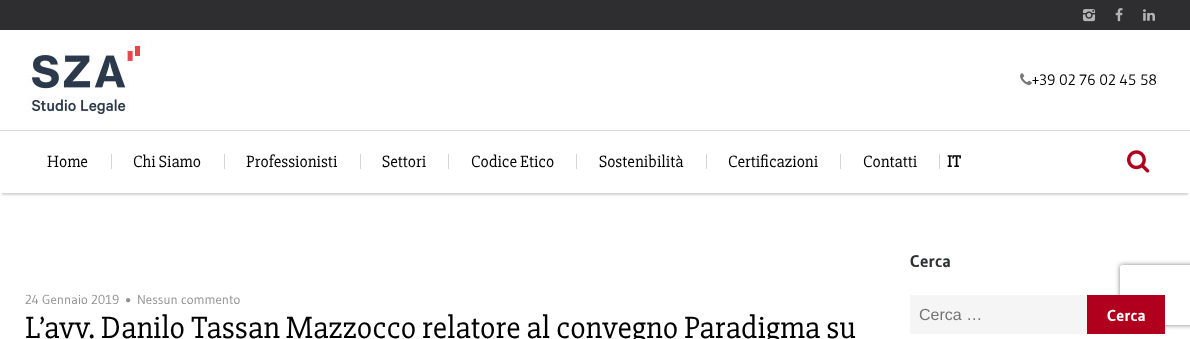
<!DOCTYPE html>
<meta charset="utf-8">
<style>body { margin: 0 } canvas { display: block }</style>
<canvas id="canvas" width="1190" height="339"></canvas>
<script type="module">
  const canvas = document.getElementById("canvas");
  const ctx = canvas.getContext("2d");
  ctx.miterLimit = 4;
  ctx.fontKerning = "normal";
  async function loadImage(src) {
    const img = new Image();
    img.src = src;
    await img.decode();
    return img;
  }

  ctx.fillStyle = "#ffffff";
  ctx.fillRect(0, 0, 1190, 339);
  ctx.fillStyle = "#2e2e30";
  ctx.fillRect(0, 0, 1190, 30);
  ctx.drawImage(await loadImage("img1.png"), 1083, 9, 13, 13);
  ctx.drawImage(await loadImage("img2.png"), 1115, 8, 8, 14);
  ctx.drawImage(await loadImage("img3.png"), 1143, 9, 12, 12);
  ctx.drawImage(await loadImage("img4.png"), 25, 40, 120, 78);
  ctx.drawImage(await loadImage("img5.png"), 1020, 73, 12, 12);
  ctx.font = "15px Gudea";
  ctx.fillStyle = "#000000";
  ctx.fillText("+39 02 76 02 45 58", 1032, 85);
  ctx.save();
  ctx.beginPath();
  ctx.rect(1, 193, 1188, 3);
  ctx.clip();
  ctx.fillStyle = "rgba(107, 107, 107, 0.3)";
  ctx.filter = "blur(1px)";
  ctx.beginPath();
  ctx.rect(2, 136, 1186, 59);
  ctx.fill();
  ctx.filter = "none";
  ctx.restore();
  ctx.fillStyle = "#dadada";
  ctx.fillRect(0, 130, 1190, 1);
  ctx.font = "17px 'Slabo 27px'";
  ctx.fillStyle = "#000000";
  ctx.fillText("Home", 47, 167);
  ctx.fillStyle = "#d5d5d6";
  ctx.fillRect(111, 154, 1, 15);
  ctx.fillStyle = "#000000";
  ctx.fillText("Chi Siamo", 133, 167);
  ctx.fillStyle = "#d5d5d6";
  ctx.fillRect(224, 154, 1, 15);
  ctx.fillStyle = "#000000";
  ctx.fillText("Professionisti", 246, 167);
  ctx.fillStyle = "#d5d5d6";
  ctx.fillRect(360, 154, 1, 15);
  ctx.fillStyle = "#000000";
  ctx.fillText("Settori", 382, 167);
  ctx.fillStyle = "#d5d5d6";
  ctx.fillRect(448, 154, 1, 15);
  ctx.fillStyle = "#000000";
  ctx.fillText("Codice Etico", 471, 167);
  ctx.fillStyle = "#d5d5d6";
  ctx.fillRect(576, 154, 1, 15);
  ctx.fillStyle = "#000000";
  ctx.fillText("Sostenibilità", 599, 167);
  ctx.fillStyle = "#d5d5d6";
  ctx.fillRect(706, 154, 1, 15);
  ctx.fillStyle = "#000000";
  ctx.fillText("Certificazioni", 728, 167);
  ctx.fillStyle = "#d5d5d6";
  ctx.fillRect(840, 154, 1, 15);
  ctx.fillStyle = "#000000";
  ctx.fillText("Contatti", 863, 167);
  ctx.fillStyle = "#d5d5d6";
  ctx.fillRect(939, 154, 1, 15);
  ctx.font = "bold 17px 'Slabo 27px'";
  ctx.fillStyle = "#000000";
  ctx.fillText("IT", 947, 167);
  ctx.drawImage(await loadImage("img6.png"), 1127, 150, 23, 23);
  ctx.font = "13px Gudea";
  ctx.fillStyle = "#909090";
  ctx.fillText("24 Gennaio 2019", 25, 304);
  ctx.drawImage(await loadImage("img7.png"), 126, 298, 5, 5);
  ctx.fillText("Nessun commento", 137, 304);
  ctx.font = "32px 'Slabo 27px'";
  ctx.fillStyle = "#000000";
  ctx.fillText("L’avv. Danilo Tassan Mazzocco relatore al convegno Paradigma su", 25, 338);
  ctx.font = "bold 17px Gudea";
  ctx.fillStyle = "#303133";
  ctx.fillText("Cerca", 910, 267);
  ctx.fillStyle = "#f5f5f5";
  ctx.fillRect(910, 295, 177, 39);
  ctx.font = "16px Liberation Sans";
  ctx.fillStyle = "#757575";
  ctx.fillText("Cerca …", 919, 320);
  ctx.save();
  ctx.beginPath();
  ctx.moveTo(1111, 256);
  ctx.lineTo(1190, 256);
  ctx.lineTo(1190, 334);
  ctx.lineTo(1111, 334);
  ctx.closePath();
  ctx.moveTo(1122, 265);
  ctx.lineTo(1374, 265);
  ctx.bezierCurveTo(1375, 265, 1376, 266, 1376, 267);
  ctx.lineTo(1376, 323);
  ctx.bezierCurveTo(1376, 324, 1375, 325, 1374, 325);
  ctx.lineTo(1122, 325);
  ctx.bezierCurveTo(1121, 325, 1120, 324, 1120, 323);
  ctx.lineTo(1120, 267);
  ctx.bezierCurveTo(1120, 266, 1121, 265, 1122, 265);
  ctx.closePath();
  ctx.clip("evenodd");
  ctx.fillStyle = "#808080";
  ctx.filter = "blur(2.5px)";
  ctx.beginPath();
  ctx.roundRect(1120, 265, 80, 60, 2);
  ctx.fill();
  ctx.filter = "none";
  ctx.restore();
  ctx.fillStyle = "#b1001e";
  ctx.fillRect(1087, 295, 78, 39);
  ctx.font = "bold 16px Gudea";
  ctx.fillStyle = "#ffffff";
  ctx.fillText("Cerca", 1107, 321);
</script>
